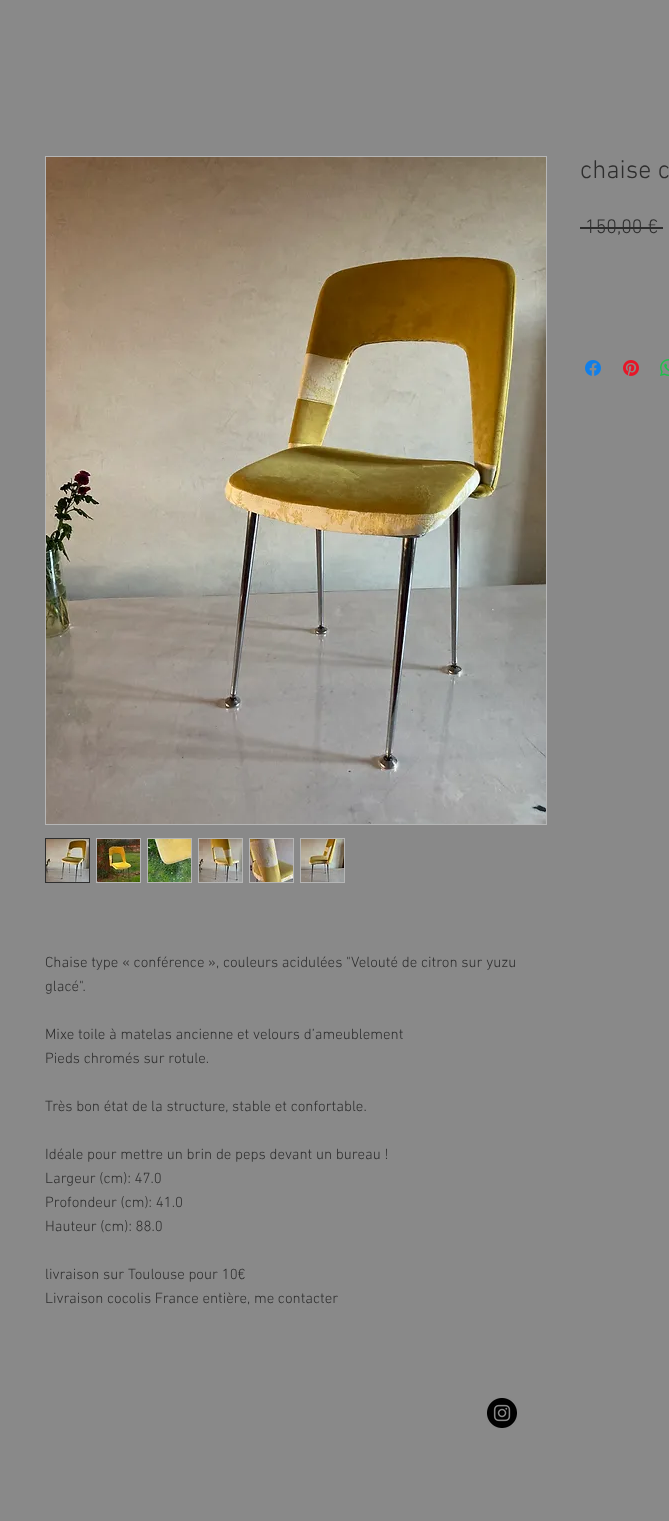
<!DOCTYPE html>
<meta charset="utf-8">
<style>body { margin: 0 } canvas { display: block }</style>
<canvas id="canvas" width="669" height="1521"></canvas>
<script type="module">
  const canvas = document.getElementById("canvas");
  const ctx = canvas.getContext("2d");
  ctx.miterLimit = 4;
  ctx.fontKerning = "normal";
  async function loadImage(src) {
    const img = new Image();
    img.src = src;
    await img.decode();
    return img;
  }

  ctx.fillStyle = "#898989";
  ctx.fillRect(0, 0, 669, 1521);
  ctx.font = "300 26px 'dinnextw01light'";
  ctx.fillStyle = "#2e2e2e";
  ctx.fillText("chaise c", 580, 178);
  ctx.font = "300 20px 'dinnextw01light'";
  ctx.fillText("150,00 €", 585, 233);
  ctx.fillRect(580, 227, 83, 2);
  ctx.drawImage(await loadImage("img1.png"), 585, 360, 16, 16);
  ctx.drawImage(await loadImage("img2.png"), 623, 360, 16, 16);
  ctx.drawImage(await loadImage("img3.png"), 660, 359, 9, 17);
  ctx.strokeStyle = "#b6b6b6";
  ctx.strokeRect(45.5, 156.5, 501, 668);
  ctx.drawImage(await loadImage("img4.png"), 46, 157, 500, 667);
  ctx.strokeStyle = "#2e2e2e";
  ctx.strokeRect(45.5, 838.5, 44, 44);
  ctx.drawImage(await loadImage("img5.png"), 46, 839, 43, 43);
  ctx.fillStyle = "#b6b6b6";
  ctx.fillRect(96, 838, 45, 45);
  ctx.drawImage(await loadImage("img6.png"), 97, 839, 43, 43);
  ctx.fillRect(147, 838, 45, 45);
  ctx.drawImage(await loadImage("img7.png"), 148, 839, 43, 43);
  ctx.fillRect(198, 838, 45, 45);
  ctx.drawImage(await loadImage("img8.png"), 199, 839, 43, 43);
  ctx.fillRect(249, 838, 45, 45);
  ctx.drawImage(await loadImage("img9.png"), 250, 839, 43, 43);
  ctx.fillRect(300, 838, 45, 45);
  ctx.drawImage(await loadImage("img10.png"), 301, 839, 43, 43);
  ctx.font = "300 15px 'dinnextw01light'";
  ctx.fillStyle = "#2e2e2e";
  ctx.fillText("Chaise type « conférence », couleurs acidulées \"Velouté de citron sur yuzu", 45, 967);
  ctx.fillText("glacé\".", 45, 991);
  ctx.fillText("Mixe toile à matelas ancienne et velours d’ameublement", 45, 1039);
  ctx.fillText("Pieds chromés sur rotule.", 45, 1063);
  ctx.fillText("Très bon état de la structure, stable et confortable.", 45, 1111);
  ctx.fillText("Idéale pour mettre un brin de peps devant un bureau !", 45, 1159);
  ctx.fillText("Largeur (cm): 47.0", 45, 1183);
  ctx.fillText("Profondeur (cm): 41.0", 45, 1207);
  ctx.fillText("Hauteur (cm): 88.0", 45, 1231);
  ctx.fillText("livraison sur Toulouse pour 10€", 45, 1279);
  ctx.fillText("Livraison cocolis France entière, me contacter", 45, 1303);
  ctx.drawImage(await loadImage("img11.png"), 487, 1398, 30, 30);
</script>
